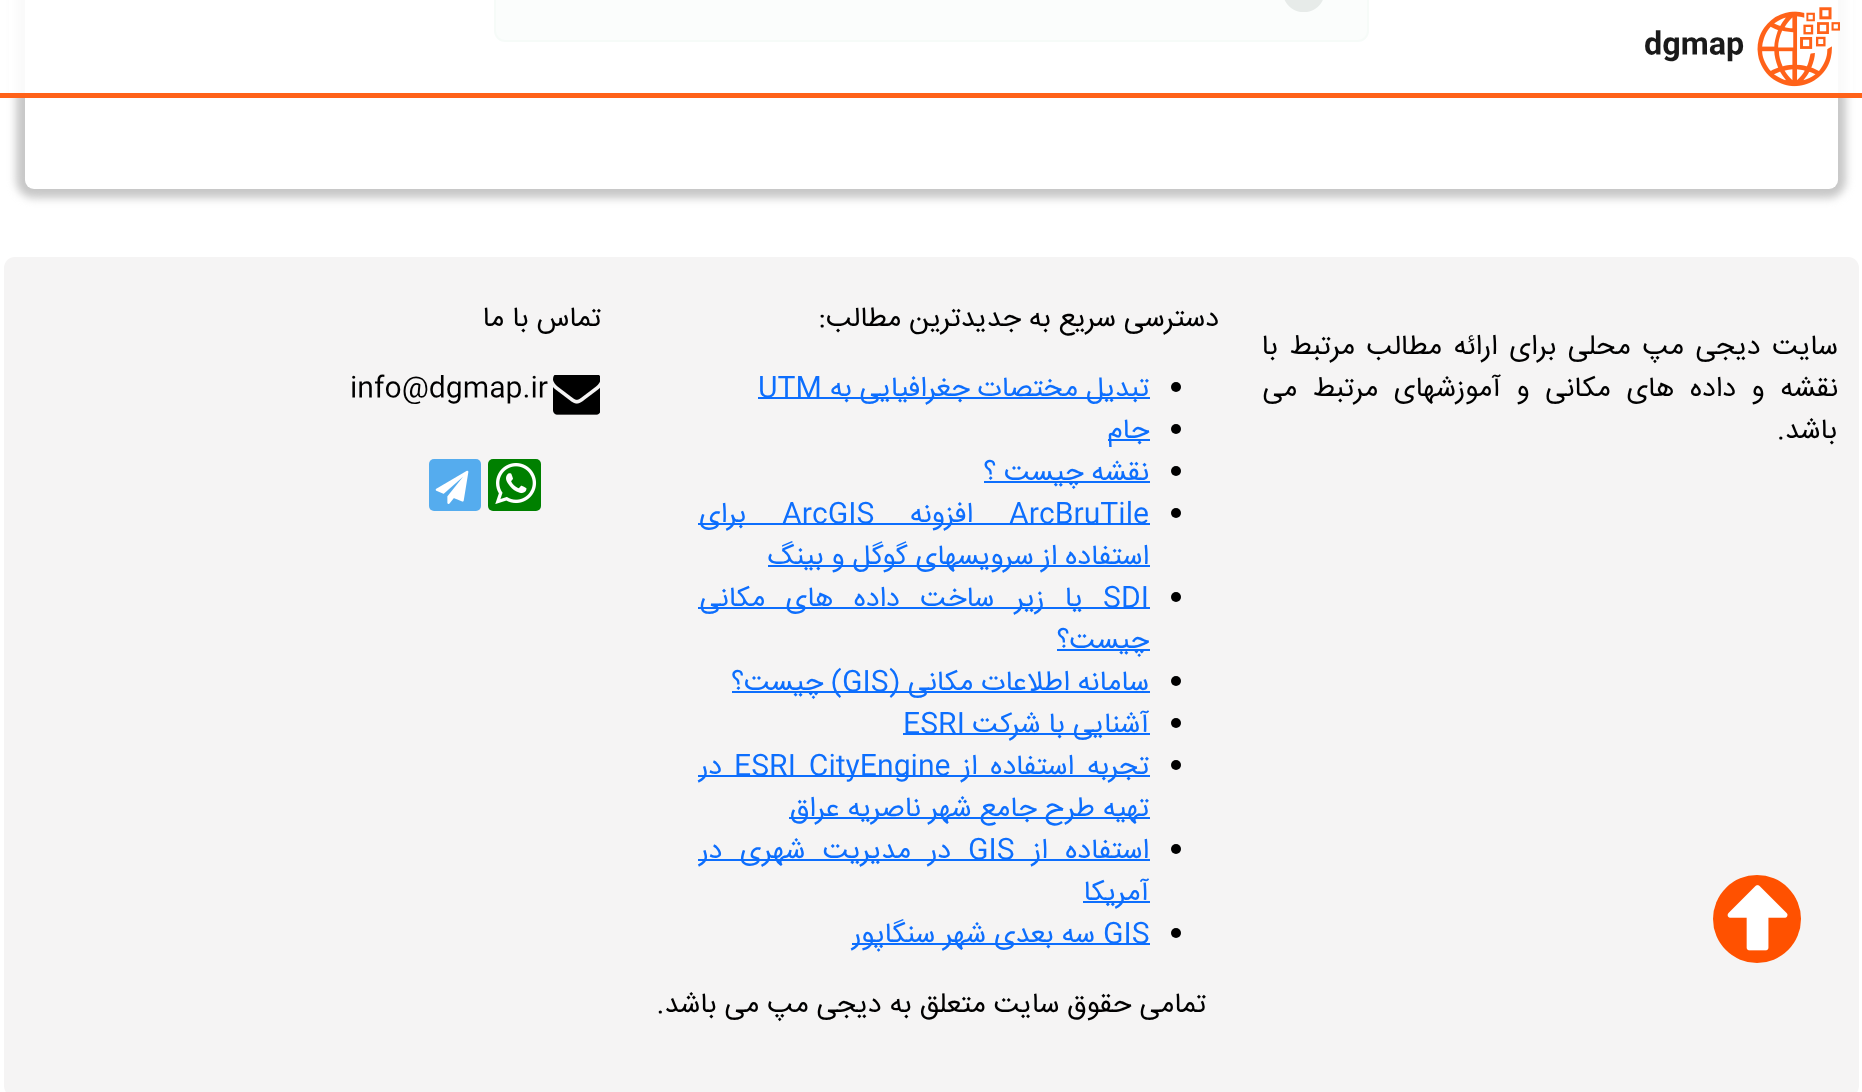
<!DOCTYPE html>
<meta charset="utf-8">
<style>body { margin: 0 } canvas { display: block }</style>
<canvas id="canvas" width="1862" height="1092"></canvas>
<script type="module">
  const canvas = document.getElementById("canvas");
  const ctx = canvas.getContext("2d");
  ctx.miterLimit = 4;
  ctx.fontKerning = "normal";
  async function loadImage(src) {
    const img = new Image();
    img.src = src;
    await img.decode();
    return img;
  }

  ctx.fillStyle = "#ffffff";
  ctx.fillRect(0, 0, 1862, 1092);
  ctx.fillStyle = "#c7c7c7";
  ctx.filter = "blur(4.5px)";
  ctx.beginPath();
  ctx.roundRect(16, -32, 1830, 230, 18);
  ctx.fill();
  ctx.filter = "none";
  ctx.fillStyle = "#ffffff";
  ctx.beginPath();
  ctx.roundRect(25, -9, 1813, 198, 9);
  ctx.fill();
  ctx.fillStyle = "#d1e7dd";
  ctx.beginPath();
  ctx.roundRect(495, -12, 873, 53, 10);
  ctx.fill();
  ctx.strokeStyle = "#a3cfbb";
  ctx.lineWidth = 2;
  ctx.stroke();
  ctx.drawImage(await loadImage("img1.png"), 1284, 0, 39, 12);
  ctx.fillStyle = "rgba(255, 255, 255, 0.9)";
  ctx.fillRect(9, 0, 1844, 98);
  ctx.fillStyle = "rgba(255, 81, 0, 0.9)";
  ctx.fillRect(0, 93, 1862, 5);
  ctx.drawImage(await loadImage("img2.png"), 1757, 7, 83, 80);
  ctx.font = "bold 30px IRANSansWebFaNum";
  ctx.fillStyle = "#1a1a1a";
  ctx.fillText("dgmap", 1644, 53);
  ctx.fillStyle = "#f5f4f4";
  ctx.beginPath();
  ctx.roundRect(4, 257, 1855, 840, 11);
  ctx.fill();
  ctx.wordSpacing = "3.75px";
  ctx.direction = "rtl";
  ctx.font = "28px IRANSansWebFaNum";
  ctx.fillStyle = "#000000";
  ctx.fillText("سایت دیجی مپ محلی برای ارائه مطالب مرتبط با", 1838, 354);
  ctx.wordSpacing = "7.75px";
  ctx.fillText("نقشه و داده های مکانی و آموزشهای مرتبط می", 1838, 396);
  ctx.wordSpacing = "0px";
  ctx.fillText("باشد.", 1837, 438);
  ctx.fillText("دسترسی سریع به جدیدترین مطالب:", 1219, 326);
  ctx.beginPath();
  ctx.arc(1176, 387, 5, 0, Math.PI * 2);
  ctx.fill();
  ctx.fillStyle = "#0d6efd";
  ctx.fillRect(758, 397, 392, 2);
  ctx.fillText("تبدیل مختصات جغرافیایی به", 1149, 396);
  ctx.direction = "ltr";
  ctx.fillText("UTM", 758, 396);
  ctx.fillStyle = "#000000";
  ctx.beginPath();
  ctx.arc(1176, 429, 5, 0, Math.PI * 2);
  ctx.fill();
  ctx.fillStyle = "#0d6efd";
  ctx.fillRect(1108, 439, 42, 2);
  ctx.direction = "rtl";
  ctx.fillText("جام", 1149, 438);
  ctx.fillStyle = "#000000";
  ctx.beginPath();
  ctx.arc(1176, 471, 5, 0, Math.PI * 2);
  ctx.fill();
  ctx.fillStyle = "#0d6efd";
  ctx.fillRect(984, 481, 166, 2);
  ctx.fillText("نقشه چیست ؟", 1149, 480);
  ctx.fillStyle = "#000000";
  ctx.beginPath();
  ctx.arc(1176, 513, 5, 0, Math.PI * 2);
  ctx.fill();
  ctx.fillStyle = "#0d6efd";
  ctx.fillRect(698, 523, 452, 2);
  ctx.direction = "ltr";
  ctx.fillText("ArcBruTile", 1009, 522);
  ctx.direction = "rtl";
  ctx.fillText("افزونه", 973, 522);
  ctx.direction = "ltr";
  ctx.fillText("ArcGIS", 782, 522);
  ctx.direction = "rtl";
  ctx.fillText("برای", 746, 522);
  ctx.fillRect(768, 565, 382, 2);
  ctx.fillText("استفاده از سرویسهای گوگل و بینگ", 1149, 564);
  ctx.fillStyle = "#000000";
  ctx.beginPath();
  ctx.arc(1176, 597, 5, 0, Math.PI * 2);
  ctx.fill();
  ctx.fillStyle = "#0d6efd";
  ctx.fillRect(698, 607, 452, 2);
  ctx.direction = "ltr";
  ctx.fillText("SDI", 1103, 606);
  ctx.wordSpacing = "12.5px";
  ctx.direction = "rtl";
  ctx.fillText("یا زیر ساخت داده های مکانی", 1083, 606);
  ctx.fillRect(1057, 649, 93, 2);
  ctx.wordSpacing = "0px";
  ctx.fillText("چیست؟", 1149, 648);
  ctx.fillStyle = "#000000";
  ctx.beginPath();
  ctx.arc(1176, 681, 5, 0, Math.PI * 2);
  ctx.fill();
  ctx.fillStyle = "#0d6efd";
  ctx.fillRect(732, 691, 418, 2);
  ctx.fillText("سامانه اطلاعات مکانی (", 1149, 690);
  ctx.direction = "ltr";
  ctx.fillText("GIS", 842, 690);
  ctx.direction = "rtl";
  ctx.fillText(") چیست؟", 842, 690);
  ctx.fillStyle = "#000000";
  ctx.beginPath();
  ctx.arc(1176, 723, 5, 0, Math.PI * 2);
  ctx.fill();
  ctx.fillStyle = "#0d6efd";
  ctx.fillRect(903, 733, 247, 2);
  ctx.fillText("آشنایی با شرکت", 1149, 732);
  ctx.direction = "ltr";
  ctx.fillText("ESRI", 903, 732);
  ctx.fillStyle = "#000000";
  ctx.beginPath();
  ctx.arc(1176, 765, 5, 0, Math.PI * 2);
  ctx.fill();
  ctx.fillStyle = "#0d6efd";
  ctx.fillRect(698, 775, 452, 2);
  ctx.wordSpacing = "5px";
  ctx.direction = "rtl";
  ctx.fillText("تجربه استفاده از", 1149, 774);
  ctx.direction = "ltr";
  ctx.fillText("ESRI CityEngine", 734, 774);
  ctx.wordSpacing = "0px";
  ctx.direction = "rtl";
  ctx.fillText("در", 722, 774);
  ctx.fillRect(789, 817, 361, 2);
  ctx.fillText("تهیه طرح جامع شهر ناصریه عراق", 1149, 816);
  ctx.fillStyle = "#000000";
  ctx.beginPath();
  ctx.arc(1176, 849, 5, 0, Math.PI * 2);
  ctx.fill();
  ctx.fillStyle = "#0d6efd";
  ctx.fillRect(698, 859, 452, 2);
  ctx.wordSpacing = "9.5px";
  ctx.fillText("استفاده از", 1149, 858);
  ctx.wordSpacing = "0px";
  ctx.direction = "ltr";
  ctx.fillText("GIS", 968, 858);
  ctx.wordSpacing = "9.5px";
  ctx.direction = "rtl";
  ctx.fillText("در مدیریت شهری در", 951, 858);
  ctx.fillRect(1083, 901, 67, 2);
  ctx.wordSpacing = "0px";
  ctx.fillText("آمریکا", 1149, 900);
  ctx.fillStyle = "#000000";
  ctx.beginPath();
  ctx.arc(1176, 933, 5, 0, Math.PI * 2);
  ctx.fill();
  ctx.fillStyle = "#0d6efd";
  ctx.fillRect(852, 943, 298, 2);
  ctx.direction = "ltr";
  ctx.fillText("GIS", 1103, 942);
  ctx.direction = "rtl";
  ctx.fillText("سه بعدی شهر سنگاپور", 1095, 942);
  ctx.fillStyle = "#000000";
  ctx.fillText("تماس با ما", 601, 326);
  ctx.drawImage(await loadImage("img3.png"), 553, 375, 47, 40);
  ctx.direction = "ltr";
  ctx.fillText("info@dgmap.ir", 350, 396);
  ctx.fillStyle = "#008000";
  ctx.beginPath();
  ctx.roundRect(488, 459, 53, 52, 5);
  ctx.fill();
  ctx.drawImage(await loadImage("img4.png"), 495, 463, 42, 41);
  ctx.fillStyle = "#55acee";
  ctx.beginPath();
  ctx.roundRect(429, 459, 52, 52, 5);
  ctx.fill();
  ctx.drawImage(await loadImage("img5.png"), 435, 470, 34, 34);
  ctx.direction = "rtl";
  ctx.fillStyle = "#000000";
  ctx.fillText("تمامی حقوق سایت متعلق به دیجی مپ می باشد.", 1206, 1012);
  ctx.fillStyle = "#ff5100";
  ctx.beginPath();
  ctx.arc(1757, 919, 44, 0, Math.PI * 2);
  ctx.fill();
  ctx.drawImage(await loadImage("img6.png"), 1727, 885, 61, 66);
</script>
